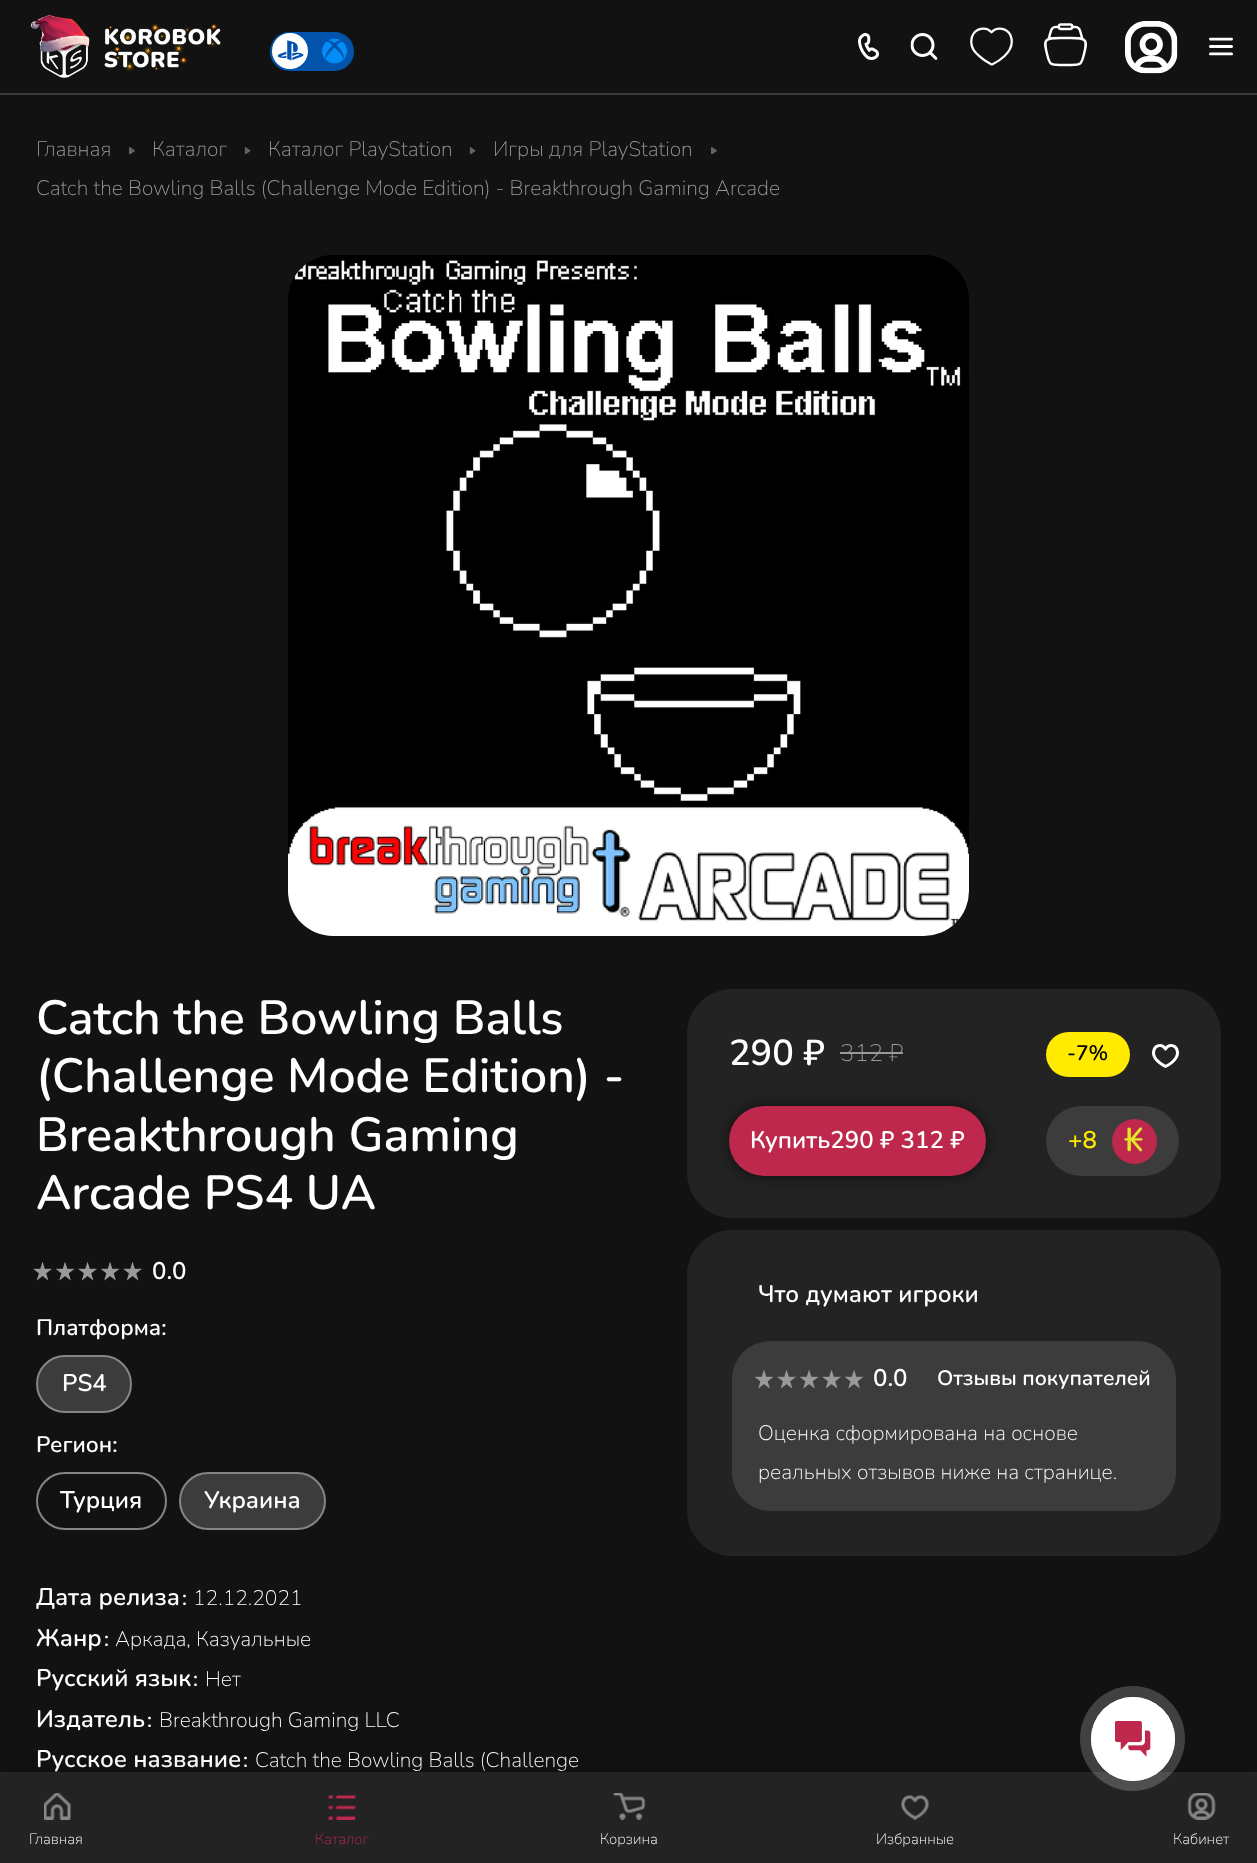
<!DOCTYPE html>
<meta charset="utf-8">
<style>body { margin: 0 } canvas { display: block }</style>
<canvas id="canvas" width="1257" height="1863"></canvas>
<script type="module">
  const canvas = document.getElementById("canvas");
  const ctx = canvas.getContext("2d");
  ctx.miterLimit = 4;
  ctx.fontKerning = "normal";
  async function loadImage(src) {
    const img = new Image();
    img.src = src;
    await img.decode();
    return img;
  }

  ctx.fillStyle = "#121212";
  ctx.fillRect(0, 0, 1257, 1863);
  ctx.fillStyle = "#3a3a3a";
  ctx.fillRect(0, 93, 1257, 2);
  ctx.drawImage(await loadImage("img1.png"), 30, 15, 191, 63);
  ctx.fillStyle = "#0153ab";
  ctx.beginPath();
  ctx.roundRect(270, 32, 84, 39, 19.5);
  ctx.fill();
  ctx.fillStyle = "#ffffff";
  ctx.beginPath();
  ctx.arc(290, 51, 18, 0, Math.PI * 2);
  ctx.fill();
  ctx.drawImage(await loadImage("img2.png"), 278, 40, 26, 21);
  ctx.drawImage(await loadImage("img3.png"), 322, 38, 25, 26);
  ctx.drawImage(await loadImage("img4.png"), 858, 33, 21, 27);
  ctx.drawImage(await loadImage("img5.png"), 910, 33, 28, 27);
  ctx.drawImage(await loadImage("img6.png"), 970, 27, 43, 39);
  ctx.drawImage(await loadImage("img7.png"), 1044, 23, 43, 44);
  ctx.drawImage(await loadImage("img8.png"), 1125, 21, 53, 53);
  ctx.drawImage(await loadImage("img9.png"), 1209, 37, 24, 19);
  ctx.font = "200 21px Nunito";
  ctx.fillStyle = "#999999";
  ctx.fillText("Главная", 36, 156);
  ctx.drawImage(await loadImage("img10.png"), 129, 147, 6, 8);
  ctx.fillText("Каталог", 152, 156);
  ctx.drawImage(await loadImage("img11.png"), 244, 147, 7, 8);
  ctx.fillText("Каталог PlayStation", 268, 156);
  ctx.drawImage(await loadImage("img11.png"), 469, 147, 7, 8);
  ctx.fillText("Игры для PlayStation", 493, 156);
  ctx.drawImage(await loadImage("img10.png"), 711, 147, 6, 8);
  ctx.fillText("Catch the Bowling Balls (Challenge Mode Edition) - Breakthrough Gaming Arcade", 36, 195);
  ctx.drawImage(await loadImage("img12.png"), 288, 255, 681, 681);
  ctx.font = "600 48px Nunito";
  ctx.fillStyle = "#ffffff";
  ctx.fillText("Catch the Bowling Balls", 36, 1034);
  ctx.fillText("(Challenge Mode Edition) -", 36, 1092);
  ctx.fillText("Breakthrough Gaming", 36, 1151);
  ctx.fillText("Arcade PS4 UA", 36, 1209);
  ctx.drawImage(await loadImage("img13.png"), 33, 1262, 19, 19);
  ctx.drawImage(await loadImage("img14.png"), 56, 1262, 19, 19);
  ctx.drawImage(await loadImage("img13.png"), 78, 1262, 19, 19);
  ctx.drawImage(await loadImage("img14.png"), 101, 1262, 19, 19);
  ctx.drawImage(await loadImage("img13.png"), 123, 1262, 19, 19);
  ctx.font = "600 24px Nunito";
  ctx.fillText("0.0", 152, 1279);
  ctx.font = "600 22.5px Nunito";
  ctx.fillText("Платформа:", 36, 1335);
  ctx.fillStyle = "#3c3c3c";
  ctx.beginPath();
  ctx.roundRect(37, 1356, 94, 56, 28);
  ctx.fill();
  ctx.strokeStyle = "#858585";
  ctx.lineWidth = 2;
  ctx.stroke();
  ctx.font = "600 24px Nunito";
  ctx.fillStyle = "#ffffff";
  ctx.fillText("PS4", 62, 1391);
  ctx.font = "600 22.5px Nunito";
  ctx.fillText("Регион:", 36, 1452);
  ctx.beginPath();
  ctx.roundRect(37, 1473, 129, 56, 28);
  ctx.stroke();
  ctx.font = "600 24px Nunito";
  ctx.fillText("Турция", 60, 1508);
  ctx.fillStyle = "#3c3c3c";
  ctx.beginPath();
  ctx.roundRect(180, 1473, 145, 56, 28);
  ctx.fill();
  ctx.stroke();
  ctx.fillStyle = "#ffffff";
  ctx.fillText("Украина", 204, 1508);
  ctx.fillText("Дата релиза", 36, 1605);
  ctx.font = "600 21px Nunito";
  ctx.fillText(":", 182, 1605);
  ctx.font = "200 21px Nunito";
  ctx.fillText("12.12.2021", 193, 1605);
  ctx.font = "600 24px Nunito";
  ctx.fillText("Жанр", 36, 1646);
  ctx.font = "600 21px Nunito";
  ctx.fillText(":", 104, 1646);
  ctx.font = "200 21px Nunito";
  ctx.fillText("Аркада, Казуальные", 115, 1646);
  ctx.font = "600 24px Nunito";
  ctx.fillText("Русский язык", 36, 1686);
  ctx.font = "600 21px Nunito";
  ctx.fillText(":", 193, 1686);
  ctx.font = "200 21px Nunito";
  ctx.fillText("Нет", 205, 1686);
  ctx.font = "600 24px Nunito";
  ctx.fillText("Издатель", 36, 1727);
  ctx.font = "600 21px Nunito";
  ctx.fillText(":", 147, 1727);
  ctx.font = "200 21px Nunito";
  ctx.fillText("Breakthrough Gaming LLC", 159, 1727);
  ctx.font = "600 24px Nunito";
  ctx.fillText("Русское название", 36, 1767);
  ctx.font = "600 21px Nunito";
  ctx.fillText(":", 243, 1767);
  ctx.font = "200 21px Nunito";
  ctx.fillText("Catch the Bowling Balls (Challenge", 255, 1767);
  ctx.fillStyle = "#232323";
  ctx.beginPath();
  ctx.roundRect(687, 989, 534, 229, 45);
  ctx.fill();
  ctx.font = "600 36px Nunito";
  ctx.fillStyle = "#ffffff";
  ctx.fillText("290 ₽", 729, 1065);
  ctx.font = "200 24px Nunito";
  ctx.fillStyle = "#999999";
  ctx.fillText("312 ₽", 840, 1061);
  ctx.fillRect(840, 1052, 63, 2);
  ctx.fillStyle = "#ffea00";
  ctx.beginPath();
  ctx.roundRect(1046, 1032, 84, 45, 22.5);
  ctx.fill();
  ctx.font = "600 21px Nunito";
  ctx.fillStyle = "#000000";
  ctx.fillText("-7%", 1067, 1060);
  ctx.drawImage(await loadImage("img15.png"), 1152, 1044, 27, 24);
  ctx.fillStyle = "rgba(0, 0, 0, 0.6)";
  ctx.filter = "blur(7.5px)";
  ctx.beginPath();
  ctx.roundRect(729, 1106, 257, 70, 35);
  ctx.fill();
  ctx.filter = "none";
  ctx.fillStyle = "#bd284c";
  ctx.beginPath();
  ctx.roundRect(729, 1106, 257, 70, 35);
  ctx.fill();
  ctx.font = "600 24px Nunito";
  ctx.fillStyle = "#ffffff";
  ctx.fillText("Купить290 ₽ 312 ₽", 750, 1148);
  ctx.fillStyle = "#3c3c3c";
  ctx.beginPath();
  ctx.roundRect(1046, 1106, 133, 70, 35);
  ctx.fill();
  ctx.fillStyle = "#ffea00";
  ctx.fillText("+8", 1068, 1148);
  ctx.fillStyle = "#bd284c";
  ctx.beginPath();
  ctx.arc(1134.5, 1141.5, 22.5, 0, Math.PI * 2);
  ctx.fill();
  ctx.font = "600 33px Nunito";
  ctx.fillStyle = "#e4e627";
  ctx.fillText("₭", 1124, 1151);
  ctx.fillStyle = "#232323";
  ctx.beginPath();
  ctx.roundRect(687, 1230, 534, 326, 45);
  ctx.fill();
  ctx.font = "600 24px Nunito";
  ctx.fillStyle = "#ffffff";
  ctx.fillText("Что думают игроки", 758, 1302);
  ctx.fillStyle = "#3c3c3c";
  ctx.beginPath();
  ctx.roundRect(732, 1341, 444, 170, 38);
  ctx.fill();
  ctx.drawImage(await loadImage("img16.png"), 755, 1370, 19, 19);
  ctx.drawImage(await loadImage("img17.png"), 777, 1370, 19, 19);
  ctx.drawImage(await loadImage("img16.png"), 800, 1370, 19, 19);
  ctx.drawImage(await loadImage("img17.png"), 822, 1370, 19, 19);
  ctx.drawImage(await loadImage("img16.png"), 845, 1370, 19, 19);
  ctx.fillStyle = "#ffffff";
  ctx.fillText("0.0", 873, 1386);
  ctx.font = "600 21px Nunito";
  ctx.fillText("Отзывы покупателей", 937, 1385);
  ctx.font = "200 21px Nunito";
  ctx.fillText("Оценка сформирована на основе", 758, 1440);
  ctx.fillText("реальных отзывов ниже на странице.", 758, 1479);
  ctx.fillStyle = "rgba(0, 0, 0, 0.1)";
  ctx.filter = "blur(7.5px)";
  ctx.beginPath();
  ctx.rect(0, 1767, 1257, 92);
  ctx.fill();
  ctx.filter = "none";
  ctx.fillStyle = "#232323";
  ctx.fillRect(0, 1772, 1257, 91);
  ctx.fillStyle = "rgba(255, 255, 255, 0.2)";
  ctx.beginPath();
  ctx.arc(1132.5, 1738.5, 52.5, 0, Math.PI * 2);
  ctx.fill();
  ctx.beginPath();
  ctx.arc(1133, 1739, 41.5, 0, Math.PI * 2);
  ctx.strokeStyle = "#ffffff";
  ctx.lineWidth = 1;
  ctx.stroke();
  ctx.fillStyle = "#ffffff";
  ctx.beginPath();
  ctx.arc(1133, 1739, 42, 0, Math.PI * 2);
  ctx.fill();
  ctx.drawImage(await loadImage("img18.png"), 1115, 1721, 36, 36);
  ctx.drawImage(await loadImage("img19.png"), 44, 1793, 27, 27);
  ctx.font = "200 15px Nunito";
  ctx.fillText("Главная", 29, 1844);
  ctx.drawImage(await loadImage("img20.png"), 328, 1795, 28, 25);
  ctx.fillStyle = "#bd284c";
  ctx.fillText("Каталог", 315, 1844);
  ctx.drawImage(await loadImage("img21.png"), 613, 1793, 33, 27);
  ctx.fillStyle = "#ffffff";
  ctx.fillText("Корзина", 600, 1844);
  ctx.drawImage(await loadImage("img22.png"), 901, 1795, 28, 25);
  ctx.fillText("Избранные", 876, 1844);
  ctx.drawImage(await loadImage("img23.png"), 1187, 1793, 29, 27);
  ctx.fillText("Кабинет", 1173, 1844);
</script>
